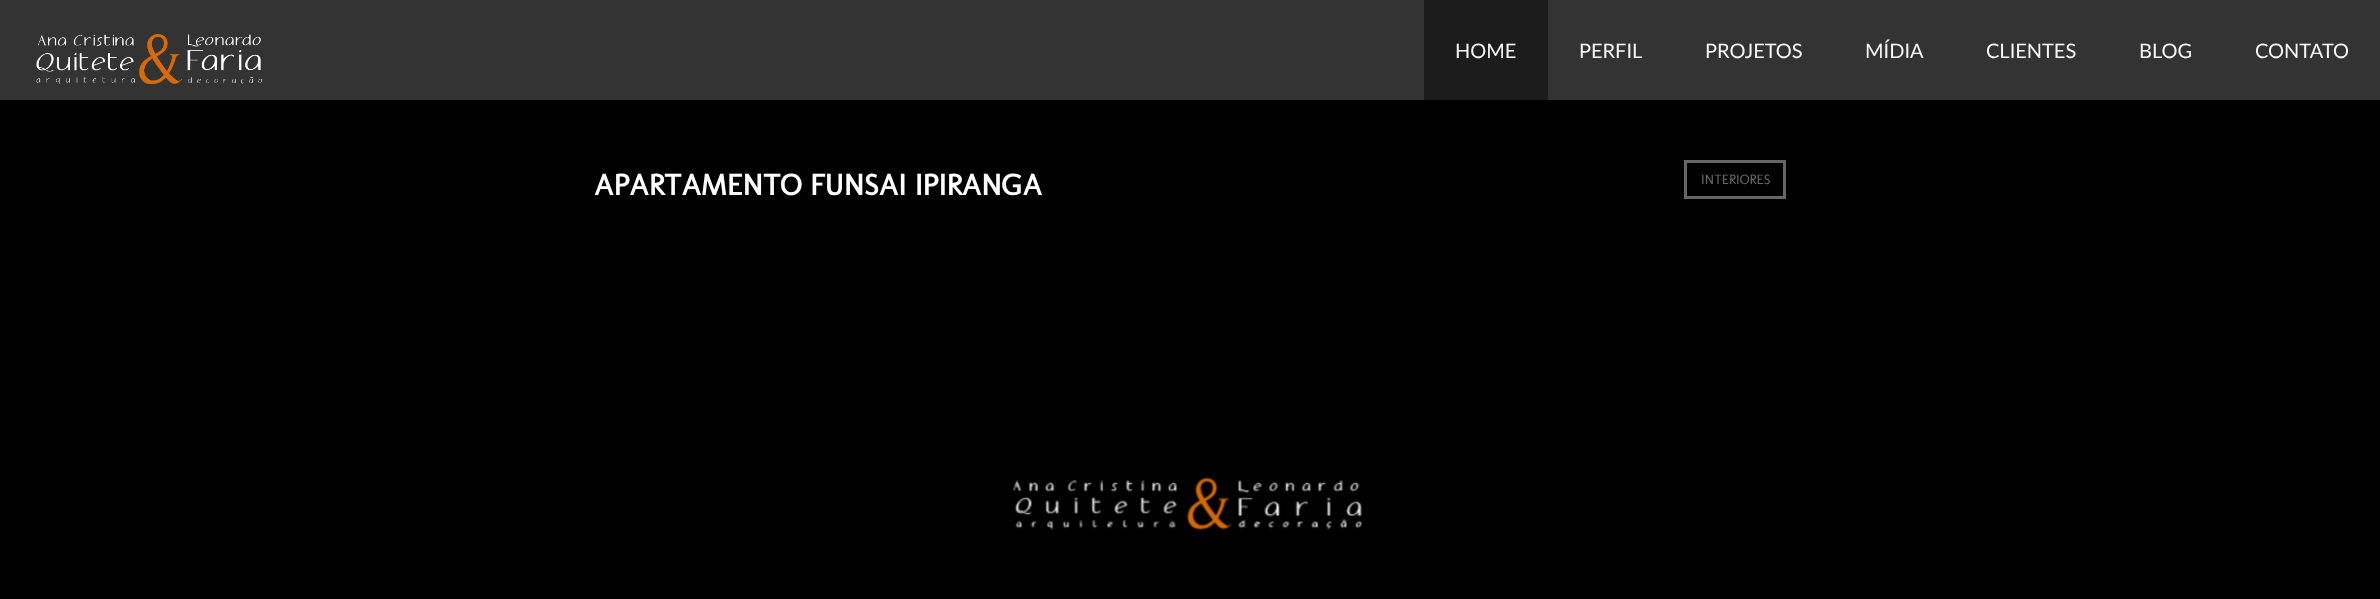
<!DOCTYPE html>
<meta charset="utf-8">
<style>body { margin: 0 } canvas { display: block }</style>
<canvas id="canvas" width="2380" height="599"></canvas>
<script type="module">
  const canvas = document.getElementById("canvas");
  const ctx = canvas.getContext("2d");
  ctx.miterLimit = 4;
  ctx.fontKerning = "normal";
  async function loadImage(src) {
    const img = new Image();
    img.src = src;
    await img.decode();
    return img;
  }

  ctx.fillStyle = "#000000";
  ctx.fillRect(0, 0, 2380, 599);
  ctx.fillStyle = "#333333";
  ctx.fillRect(0, 0, 2380, 100);
  ctx.drawImage(await loadImage("img1.png"), 36, 33, 227, 51);
  ctx.fillStyle = "#1c1c1c";
  ctx.fillRect(1424, 0, 124, 100);
  ctx.font = "20px Lato";
  ctx.fillStyle = "#f7f7f7";
  ctx.fillText("HOME", 1455, 58);
  ctx.fillText("PERFIL", 1579, 58);
  ctx.fillText("PROJETOS", 1705, 58);
  ctx.fillText("MÍDIA", 1865, 58);
  ctx.fillText("CLIENTES", 1986, 58);
  ctx.fillText("BLOG", 2139, 58);
  ctx.fillText("CONTATO", 2255, 58);
  ctx.font = "bold 30px Molengo";
  ctx.fillStyle = "#ffffff";
  ctx.fillText("APARTAMENTO FUNSAI IPIRANGA", 594, 195);
  ctx.strokeStyle = "#666666";
  ctx.lineWidth = 3;
  ctx.strokeRect(1685.5, 161.5, 99, 36);
  ctx.font = "13.75px Molengo";
  ctx.fillStyle = "#666666";
  ctx.fillText("INTERIORES", 1701, 184);
  ctx.drawImage(await loadImage("img2.png"), 1012, 477, 350, 53);
</script>
